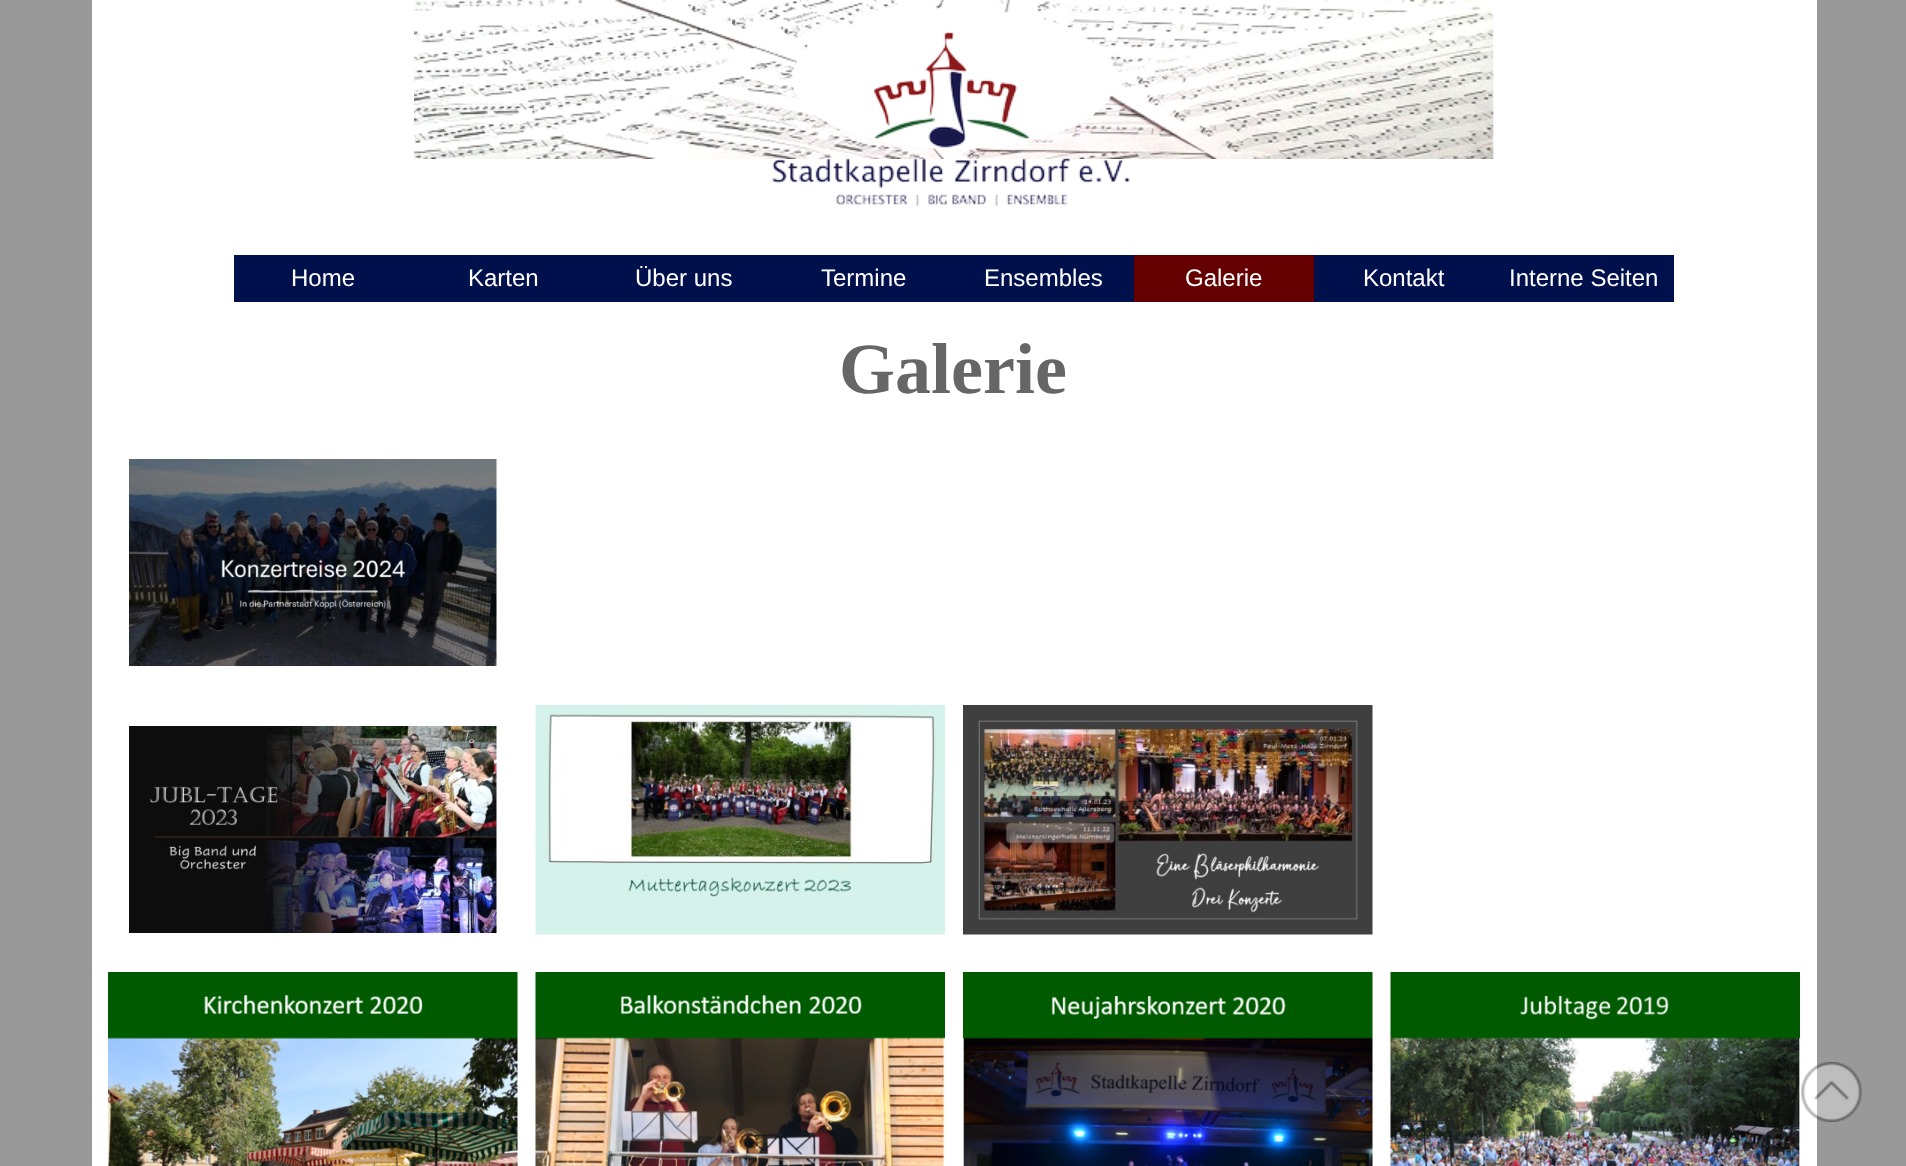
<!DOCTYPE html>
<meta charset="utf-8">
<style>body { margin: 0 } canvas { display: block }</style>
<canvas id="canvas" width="1906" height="1166"></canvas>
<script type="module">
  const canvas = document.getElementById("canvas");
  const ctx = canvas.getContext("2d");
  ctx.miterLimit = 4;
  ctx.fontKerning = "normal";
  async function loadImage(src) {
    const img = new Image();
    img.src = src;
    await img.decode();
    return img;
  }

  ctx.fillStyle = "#999999";
  ctx.fillRect(0, 0, 1906, 1166);
  ctx.fillStyle = "#ffffff";
  ctx.fillRect(92, 0, 1725, 1166);
  ctx.drawImage(await loadImage("img1.png"), 414, 0, 1080, 159);
  ctx.drawImage(await loadImage("img2.png"), 772, 31, 358, 176);
  ctx.fillStyle = "#00104c";
  ctx.fillRect(234, 255, 1440, 47);
  ctx.font = "24px Liberation Sans";
  ctx.fillStyle = "#ffffff";
  ctx.fillText("Home", 291, 286);
  ctx.fillText("Karten", 468, 286);
  ctx.fillText("Über uns", 635, 286);
  ctx.fillText("Termine", 821, 286);
  ctx.fillText("Ensembles", 984, 286);
  ctx.fillStyle = "#640000";
  ctx.fillRect(1134, 255, 180, 47);
  ctx.fillStyle = "#ffffff";
  ctx.fillText("Galerie", 1185, 286);
  ctx.fillText("Kontakt", 1363, 286);
  ctx.fillText("Interne Seiten", 1509, 286);
  ctx.font = "bold 72px Liberation Serif";
  ctx.fillStyle = "#666666";
  ctx.fillText("Galerie", 839, 393);
  ctx.drawImage(await loadImage("img3.png"), 129, 459, 368, 207);
  ctx.drawImage(await loadImage("img4.png"), 129, 726, 368, 207);
  ctx.drawImage(await loadImage("img5.png"), 535, 705, 410, 230);
  ctx.drawImage(await loadImage("img6.png"), 963, 705, 410, 230);
  ctx.drawImage(await loadImage("img7.png"), 108, 972, 410, 194);
  ctx.drawImage(await loadImage("img8.png"), 535, 972, 410, 194);
  ctx.drawImage(await loadImage("img9.png"), 963, 972, 410, 194);
  ctx.drawImage(await loadImage("img10.png"), 1390, 972, 410, 194);
  ctx.drawImage(await loadImage("img11.png"), 1801, 1062, 61, 60);
</script>
